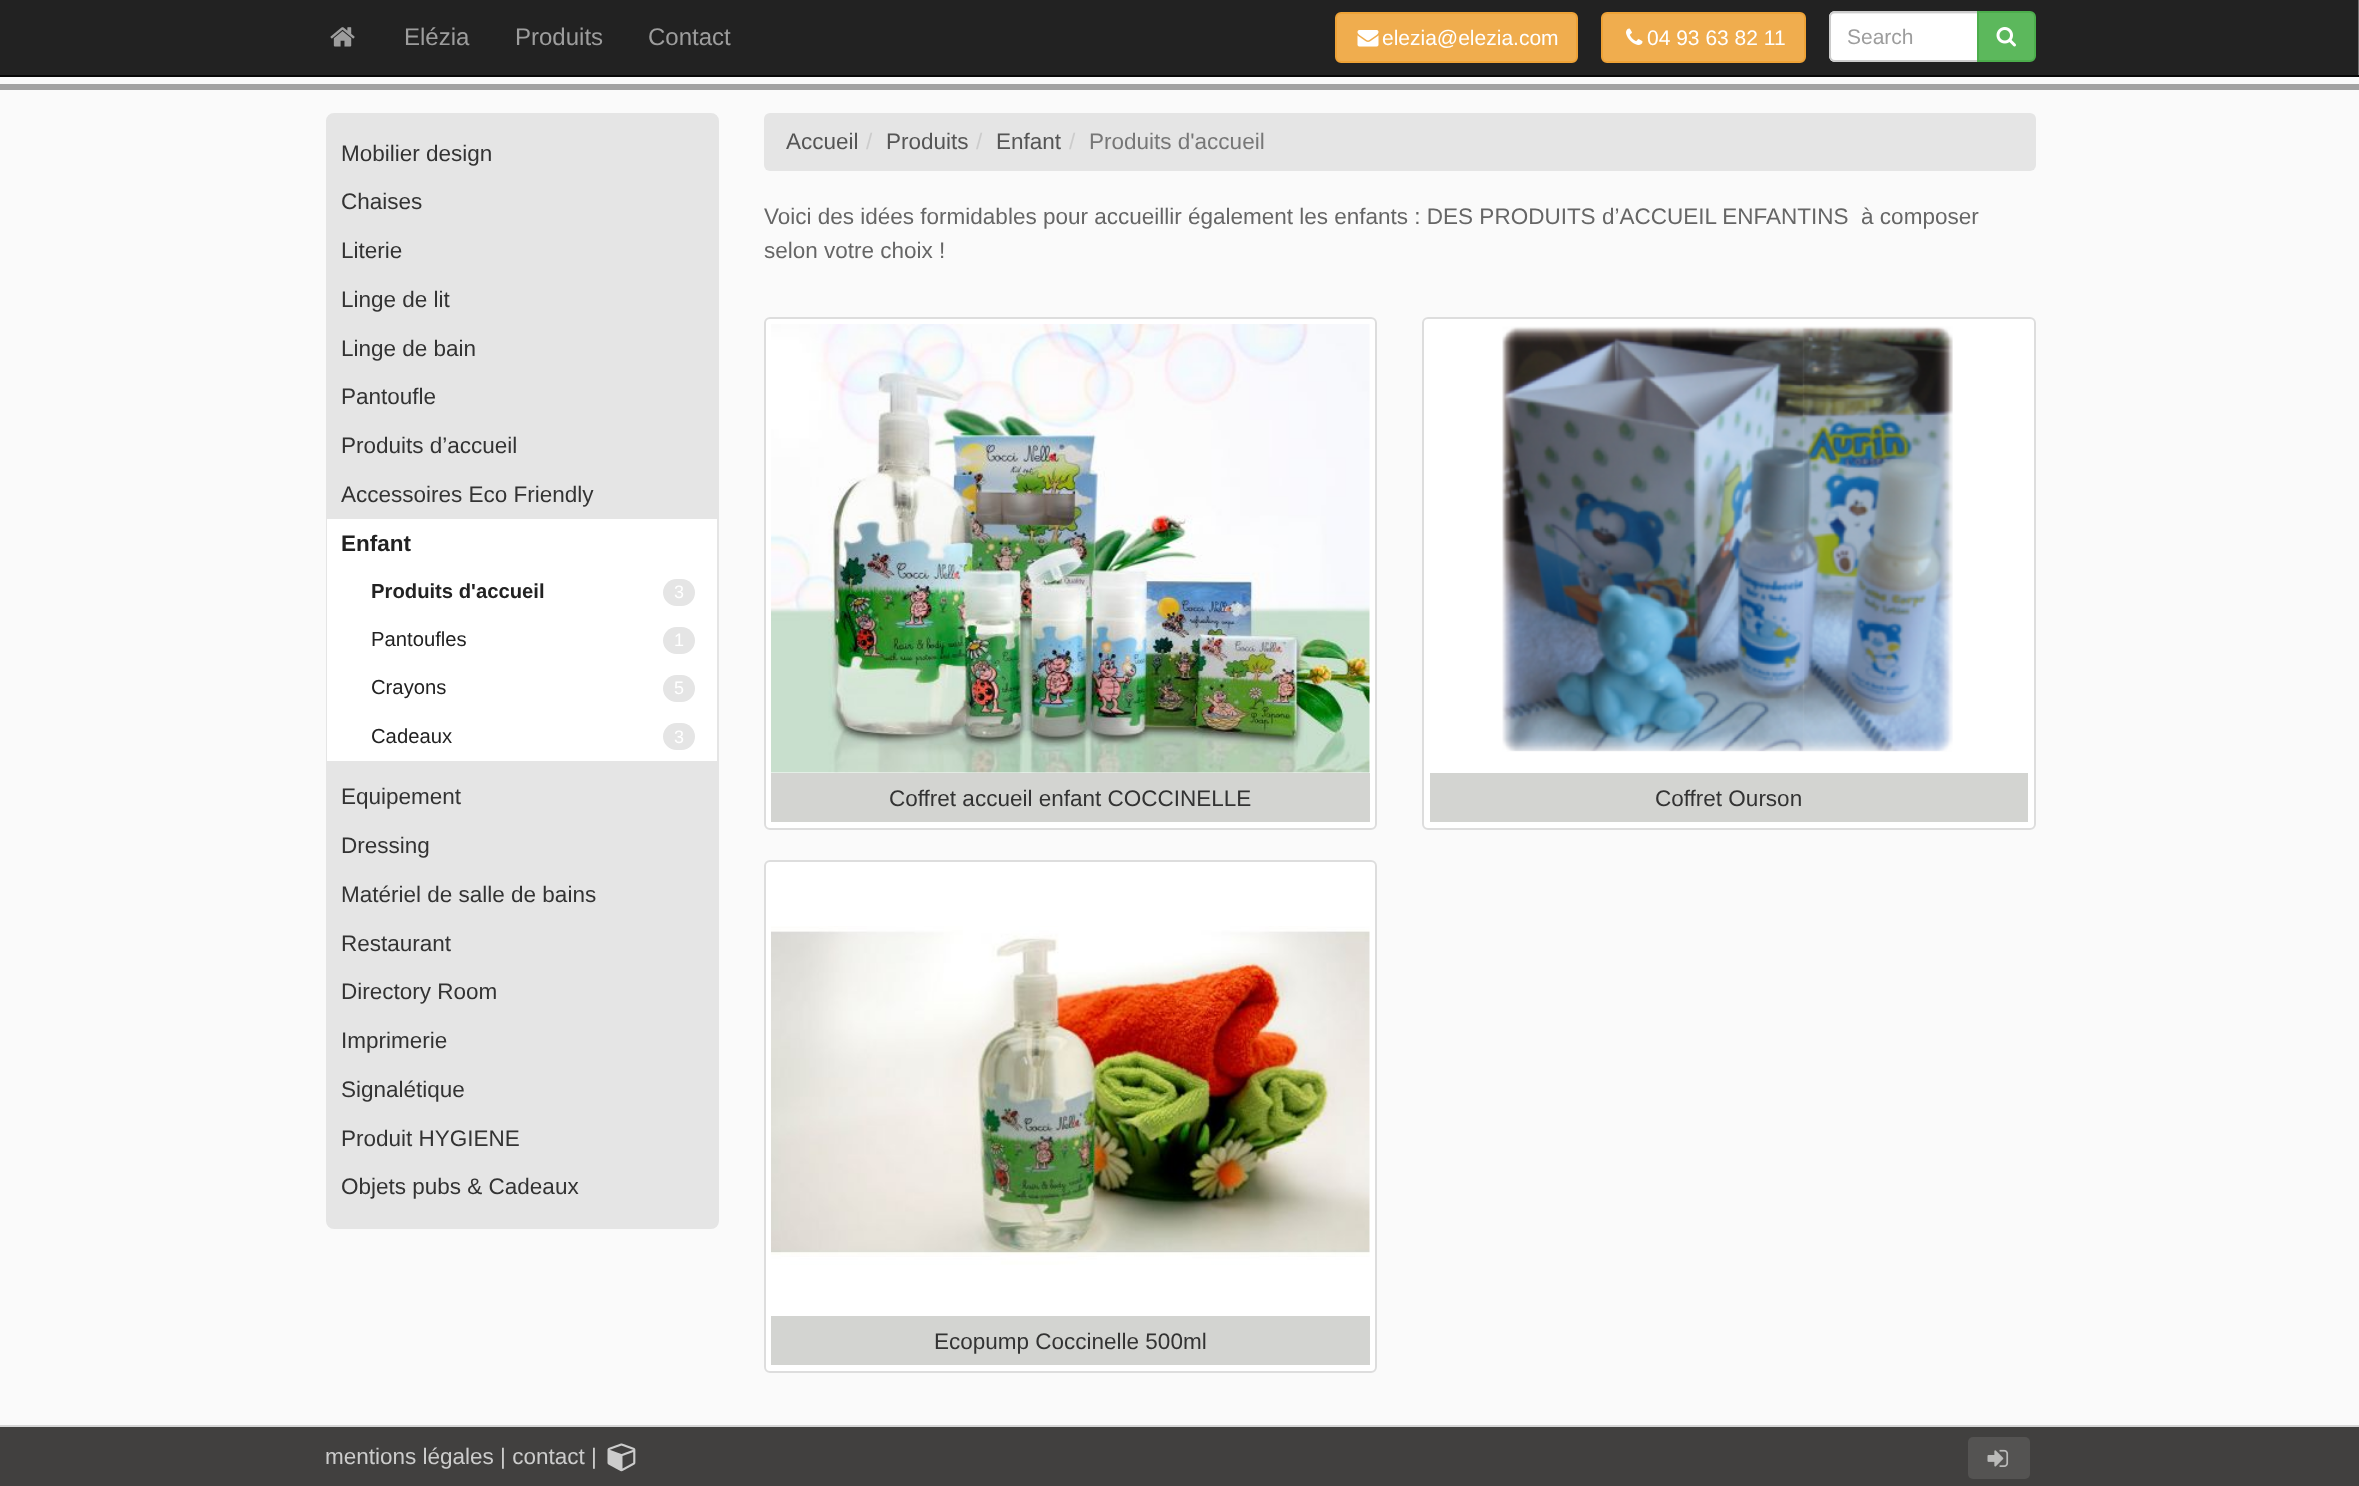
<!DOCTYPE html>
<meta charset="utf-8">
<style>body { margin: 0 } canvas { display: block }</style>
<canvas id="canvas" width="2359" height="1486"></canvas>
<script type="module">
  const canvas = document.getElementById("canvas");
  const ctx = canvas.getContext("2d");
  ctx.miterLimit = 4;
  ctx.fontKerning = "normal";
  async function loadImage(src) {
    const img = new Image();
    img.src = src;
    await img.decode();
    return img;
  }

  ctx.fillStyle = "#fafafa";
  ctx.fillRect(0, 0, 2359, 1486);
  ctx.fillStyle = "#222222";
  ctx.fillRect(0, 0, 2358, 75);
  ctx.fillStyle = "#6f6f6f";
  ctx.fillRect(2358, 0, 1, 75);
  ctx.fillStyle = "#080808";
  ctx.fillRect(0, 75, 2359, 2);
  ctx.drawImage(await loadImage("img1.png"), 330, 27, 25, 20);
  ctx.font = "24px Liberation Sans";
  ctx.fillStyle = "#9d9d9d";
  ctx.fillText("Elézia", 404, 45);
  ctx.fillText("Produits", 515, 45);
  ctx.fillText("Contact", 648, 45);
  ctx.fillStyle = "#f0ad4e";
  ctx.beginPath();
  ctx.roundRect(1336, 13, 241, 49, 5);
  ctx.fill();
  ctx.strokeStyle = "#eea236";
  ctx.lineWidth = 2;
  ctx.stroke();
  ctx.drawImage(await loadImage("img2.png"), 1357, 30, 22, 17);
  ctx.font = "21px Liberation Sans";
  ctx.fillStyle = "#ffffff";
  ctx.fillText("elezia@elezia.com", 1382, 45);
  ctx.fillStyle = "#f0ad4e";
  ctx.beginPath();
  ctx.roundRect(1602, 13, 203, 49, 5);
  ctx.fill();
  ctx.stroke();
  ctx.drawImage(await loadImage("img3.png"), 1626, 28, 17, 17);
  ctx.fillStyle = "#ffffff";
  ctx.fillText("04 93 63 82 11", 1647, 45);
  ctx.beginPath();
  ctx.roundRect(1829, 11, 150, 51, [6, 0, 0, 6]);
  ctx.fill();
  ctx.fillStyle = "#ececec";
  ctx.beginPath();
  ctx.moveTo(1834, 14);
  ctx.lineTo(1977, 14);
  ctx.lineTo(1977, 12);
  ctx.lineTo(1835, 12);
  ctx.bezierCurveTo(1832, 12, 1830, 14, 1830, 17);
  ctx.lineTo(1830, 18);
  ctx.bezierCurveTo(1830, 16, 1832, 14, 1834, 14);
  ctx.closePath();
  ctx.fill();
  ctx.beginPath();
  ctx.roundRect(1830, 12, 148, 49, [5, 0, 0, 5]);
  ctx.strokeStyle = "#cccccc";
  ctx.stroke();
  ctx.fillStyle = "#9d9d9d";
  ctx.fillText("Search", 1847, 44);
  ctx.fillStyle = "#5cb85c";
  ctx.beginPath();
  ctx.roundRect(1978, 12, 57, 49, [0, 5, 5, 0]);
  ctx.fill();
  ctx.strokeStyle = "#4cae4c";
  ctx.stroke();
  ctx.drawImage(await loadImage("img4.png"), 1996, 27, 20, 20);
  ctx.fillStyle = "#a2a2a2";
  ctx.fillRect(0, 84, 2359, 6);
  ctx.fillStyle = "#e5e5e5";
  ctx.beginPath();
  ctx.roundRect(327, 114, 391, 1114, 7);
  ctx.fill();
  ctx.strokeStyle = "#e5e5e5";
  ctx.stroke();
  ctx.font = "22.5px Liberation Sans";
  ctx.fillStyle = "#333333";
  ctx.fillText("Mobilier design", 341, 161);
  ctx.fillText("Chaises", 341, 209);
  ctx.fillText("Literie", 341, 258);
  ctx.fillText("Linge de lit", 341, 307);
  ctx.fillText("Linge de bain", 341, 356);
  ctx.fillText("Pantoufle", 341, 404);
  ctx.fillText("Produits d’accueil", 341, 453);
  ctx.fillText("Accessoires Eco Friendly", 341, 502);
  ctx.fillStyle = "#ffffff";
  ctx.fillRect(327, 519, 390, 242);
  ctx.font = "bold 22.5px Liberation Sans";
  ctx.fillStyle = "#222222";
  ctx.fillText("Enfant", 341, 551);
  ctx.font = "bold 20.25px Liberation Sans";
  ctx.fillText("Produits d'accueil", 371, 598);
  ctx.fillStyle = "#e5e5e5";
  ctx.beginPath();
  ctx.roundRect(663, 579, 32, 27, 13.5);
  ctx.fill();
  ctx.font = "18px Liberation Sans";
  ctx.fillStyle = "#ffffff";
  ctx.fillText("3", 674, 598);
  ctx.font = "20.25px Liberation Sans";
  ctx.fillStyle = "#222222";
  ctx.fillText("Pantoufles", 371, 646);
  ctx.fillStyle = "#e5e5e5";
  ctx.beginPath();
  ctx.roundRect(663, 627, 32, 27, 13.5);
  ctx.fill();
  ctx.font = "18px Liberation Sans";
  ctx.fillStyle = "#ffffff";
  ctx.fillText("1", 674, 646);
  ctx.font = "20.25px Liberation Sans";
  ctx.fillStyle = "#222222";
  ctx.fillText("Crayons", 371, 694);
  ctx.fillStyle = "#e5e5e5";
  ctx.beginPath();
  ctx.roundRect(663, 675, 32, 27, 13.5);
  ctx.fill();
  ctx.font = "18px Liberation Sans";
  ctx.fillStyle = "#ffffff";
  ctx.fillText("5", 674, 694);
  ctx.font = "20.25px Liberation Sans";
  ctx.fillStyle = "#222222";
  ctx.fillText("Cadeaux", 371, 743);
  ctx.fillStyle = "#e5e5e5";
  ctx.beginPath();
  ctx.roundRect(663, 723, 32, 27, 13.5);
  ctx.fill();
  ctx.font = "18px Liberation Sans";
  ctx.fillStyle = "#ffffff";
  ctx.fillText("3", 674, 743);
  ctx.font = "22.5px Liberation Sans";
  ctx.fillStyle = "#333333";
  ctx.fillText("Equipement", 341, 804);
  ctx.fillText("Dressing", 341, 853);
  ctx.fillText("Matériel de salle de bains", 341, 902);
  ctx.fillText("Restaurant", 341, 951);
  ctx.fillText("Directory Room", 341, 999);
  ctx.fillText("Imprimerie", 341, 1048);
  ctx.fillText("Signalétique", 341, 1097);
  ctx.fillText("Produit HYGIENE", 341, 1146);
  ctx.fillText("Objets pubs & Cadeaux", 341, 1194);
  ctx.fillStyle = "#e5e5e5";
  ctx.beginPath();
  ctx.roundRect(764, 113, 1272, 58, 6);
  ctx.fill();
  ctx.fillStyle = "#555555";
  ctx.fillText("Accueil", 786, 149);
  ctx.fillStyle = "#cccccc";
  ctx.fillText("/", 866, 149);
  ctx.fillStyle = "#555555";
  ctx.fillText("Produits", 886, 149);
  ctx.fillStyle = "#cccccc";
  ctx.fillText("/", 976, 149);
  ctx.fillStyle = "#555555";
  ctx.fillText("Enfant", 996, 149);
  ctx.fillStyle = "#cccccc";
  ctx.fillText("/", 1069, 149);
  ctx.fillStyle = "#777777";
  ctx.fillText("Produits d'accueil", 1089, 149);
  ctx.fillStyle = "#666666";
  ctx.fillText("Voici des idées formidables pour accueillir également les enfants : DES PRODUITS d’ACCUEIL ENFANTINS  à composer", 764, 224);
  ctx.fillText("selon votre choix !", 764, 258);
  ctx.fillStyle = "#ffffff";
  ctx.beginPath();
  ctx.roundRect(765, 318, 611, 511, 5);
  ctx.fill();
  ctx.strokeStyle = "#dddddd";
  ctx.stroke();
  ctx.drawImage(await loadImage("img5.png"), 771, 324, 599, 449);
  ctx.fillStyle = "#d3d4d1";
  ctx.fillRect(771, 773, 599, 49);
  ctx.fillStyle = "#333333";
  ctx.fillText("Coffret accueil enfant COCCINELLE", 889, 806);
  ctx.fillStyle = "#ffffff";
  ctx.beginPath();
  ctx.roundRect(1423, 318, 612, 511, 5);
  ctx.fill();
  ctx.stroke();
  ctx.drawImage(await loadImage("img6.png"), 1502, 326, 451, 426);
  ctx.fillStyle = "#d3d4d1";
  ctx.fillRect(1430, 773, 598, 49);
  ctx.fillStyle = "#333333";
  ctx.fillText("Coffret Ourson", 1655, 806);
  ctx.fillStyle = "#ffffff";
  ctx.beginPath();
  ctx.roundRect(765, 861, 611, 511, 5);
  ctx.fill();
  ctx.stroke();
  ctx.drawImage(await loadImage("img7.png"), 771, 926, 599, 339);
  ctx.fillStyle = "#d3d4d1";
  ctx.fillRect(771, 1316, 599, 49);
  ctx.fillStyle = "#333333";
  ctx.fillText("Ecopump Coccinelle 500ml", 934, 1349);
  ctx.fillStyle = "#41403f";
  ctx.fillRect(0, 1427, 2359, 59);
  ctx.fillStyle = "#d5d5d5";
  ctx.fillRect(0, 1425, 2359, 2);
  ctx.fillStyle = "#cccccc";
  ctx.fillText("mentions légales | contact |", 325, 1464);
  ctx.drawImage(await loadImage("img8.png"), 607, 1443, 29, 29);
  ctx.fillStyle = "#545352";
  ctx.beginPath();
  ctx.roundRect(1968, 1437, 62, 42, 5);
  ctx.fill();
  ctx.drawImage(await loadImage("img9.png"), 1987, 1449, 22, 18);
</script>
